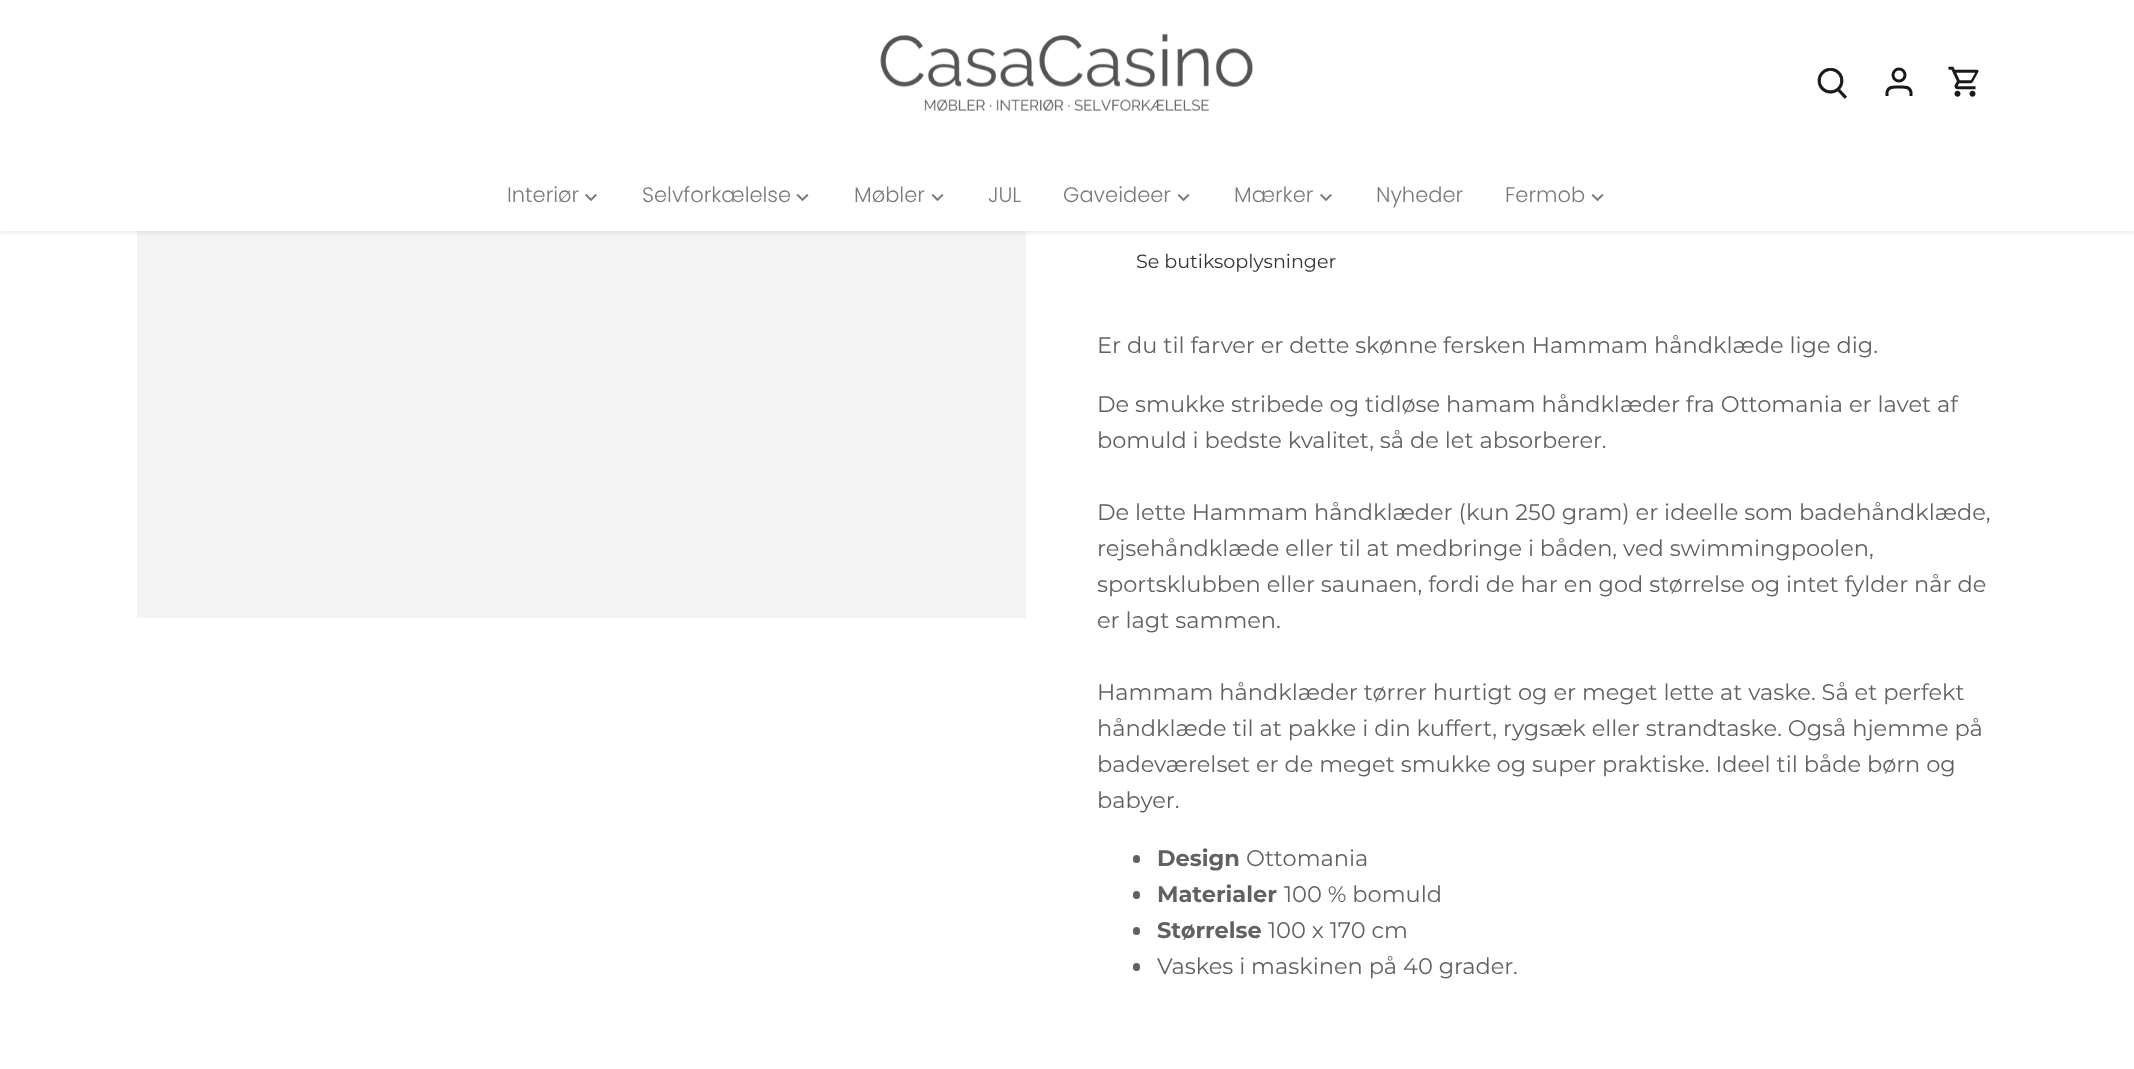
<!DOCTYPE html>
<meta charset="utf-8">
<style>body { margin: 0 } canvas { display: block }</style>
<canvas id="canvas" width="2134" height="1069"></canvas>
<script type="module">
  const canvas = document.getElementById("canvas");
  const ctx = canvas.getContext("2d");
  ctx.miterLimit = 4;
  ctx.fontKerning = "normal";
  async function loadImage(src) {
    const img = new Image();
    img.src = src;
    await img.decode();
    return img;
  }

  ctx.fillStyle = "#ffffff";
  ctx.fillRect(0, 0, 2134, 1069);
  ctx.fillStyle = "#f3f3f3";
  ctx.fillRect(137, 231, 889, 387);
  ctx.fillStyle = "rgba(0, 0, 0, 0.08)";
  ctx.filter = "blur(2px)";
  ctx.beginPath();
  ctx.rect(-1, -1, 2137, 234);
  ctx.fill();
  ctx.filter = "none";
  ctx.fillStyle = "#ffffff";
  ctx.fillRect(0, 0, 2134, 231);
  ctx.drawImage(await loadImage("img1.png"), 880, 33, 373, 78);
  ctx.drawImage(await loadImage("img2.png"), 1817, 68, 30, 31);
  ctx.beginPath();
  ctx.arc(1899, 75, 6, 0, Math.PI * 2);
  ctx.strokeStyle = "#191817";
  ctx.lineWidth = 3;
  ctx.stroke();
  ctx.beginPath();
  ctx.moveTo(1911, 96);
  ctx.lineTo(1911, 92);
  ctx.bezierCurveTo(1909.5, 86, 1903.5, 87, 1899, 87);
  ctx.bezierCurveTo(1894.5, 87, 1888.5, 86, 1887, 92);
  ctx.lineTo(1887, 96);
  ctx.stroke();
  ctx.drawImage(await loadImage("img3.png"), 1948, 66, 31, 31);
  ctx.font = "300 21px Poppins";
  ctx.fillStyle = "#787a7c";
  ctx.fillText("Interiør", 507, 202);
  ctx.drawImage(await loadImage("img4.png"), 585, 194, 12, 8);
  ctx.fillText("Selvforkælelse", 642, 202);
  ctx.drawImage(await loadImage("img5.png"), 796, 194, 13, 8);
  ctx.fillText("Møbler", 854, 202);
  ctx.drawImage(await loadImage("img5.png"), 931, 194, 13, 8);
  ctx.fillText("JUL", 988, 202);
  ctx.fillText("Gaveideer", 1063, 202);
  ctx.drawImage(await loadImage("img5.png"), 1177, 194, 13, 8);
  ctx.fillText("Mærker", 1234, 202);
  ctx.drawImage(await loadImage("img4.png"), 1320, 194, 12, 8);
  ctx.fillText("Nyheder", 1376, 202);
  ctx.fillText("Fermob", 1505, 202);
  ctx.drawImage(await loadImage("img5.png"), 1591, 194, 13, 8);
  ctx.font = "19.1px Montserrat";
  ctx.fillStyle = "#343434";
  ctx.fillText("Se butiksoplysninger", 1136, 268);
  ctx.font = "22.5px Montserrat";
  ctx.fillStyle = "#616161";
  ctx.fillText("Er du til farver er dette skønne fersken Hammam håndklæde lige dig.", 1097, 353);
  ctx.fillText("De smukke stribede og tidløse hamam håndklæder fra Ottomania er lavet af", 1097, 412);
  ctx.fillText("bomuld i bedste kvalitet, så de let absorberer.", 1097, 448);
  ctx.fillText("De lette Hammam håndklæder (kun 250 gram) er ideelle som badehåndklæde,", 1097, 520);
  ctx.fillText("rejsehåndklæde eller til at medbringe i båden, ved swimmingpoolen,", 1097, 556);
  ctx.fillText("sportsklubben eller saunaen, fordi de har en god størrelse og intet fylder når de", 1097, 592);
  ctx.fillText("er lagt sammen.", 1097, 628);
  ctx.fillText("Hammam håndklæder tørrer hurtigt og er meget lette at vaske. Så et perfekt", 1097, 700);
  ctx.fillText("håndklæde til at pakke i din kuffert, rygsæk eller strandtaske. Også hjemme på", 1097, 736);
  ctx.fillText("badeværelset er de meget smukke og super praktiske. Ideel til både børn og", 1097, 772);
  ctx.fillText("babyer.", 1097, 808);
  ctx.beginPath();
  ctx.roundRect(1133, 855, 7, 8, 3.5);
  ctx.fill();
  ctx.font = "bold 22.5px Montserrat";
  ctx.fillText("Design", 1157, 866);
  ctx.font = "22.5px Montserrat";
  ctx.fillText("Ottomania", 1246, 866);
  ctx.beginPath();
  ctx.roundRect(1133, 891, 7, 8, 3.5);
  ctx.fill();
  ctx.font = "bold 22.5px Montserrat";
  ctx.fillText("Materialer", 1157, 902);
  ctx.font = "22.5px Montserrat";
  ctx.fillText("100 % bomuld", 1284, 902);
  ctx.beginPath();
  ctx.roundRect(1133, 927, 7, 8, 3.5);
  ctx.fill();
  ctx.font = "bold 22.5px Montserrat";
  ctx.fillText("Størrelse", 1157, 938);
  ctx.font = "22.5px Montserrat";
  ctx.fillText("100 x 170 cm", 1268, 938);
  ctx.beginPath();
  ctx.roundRect(1133, 963, 7, 8, 3.5);
  ctx.fill();
  ctx.fillText("Vaskes i maskinen på 40 grader.", 1157, 974);
</script>
